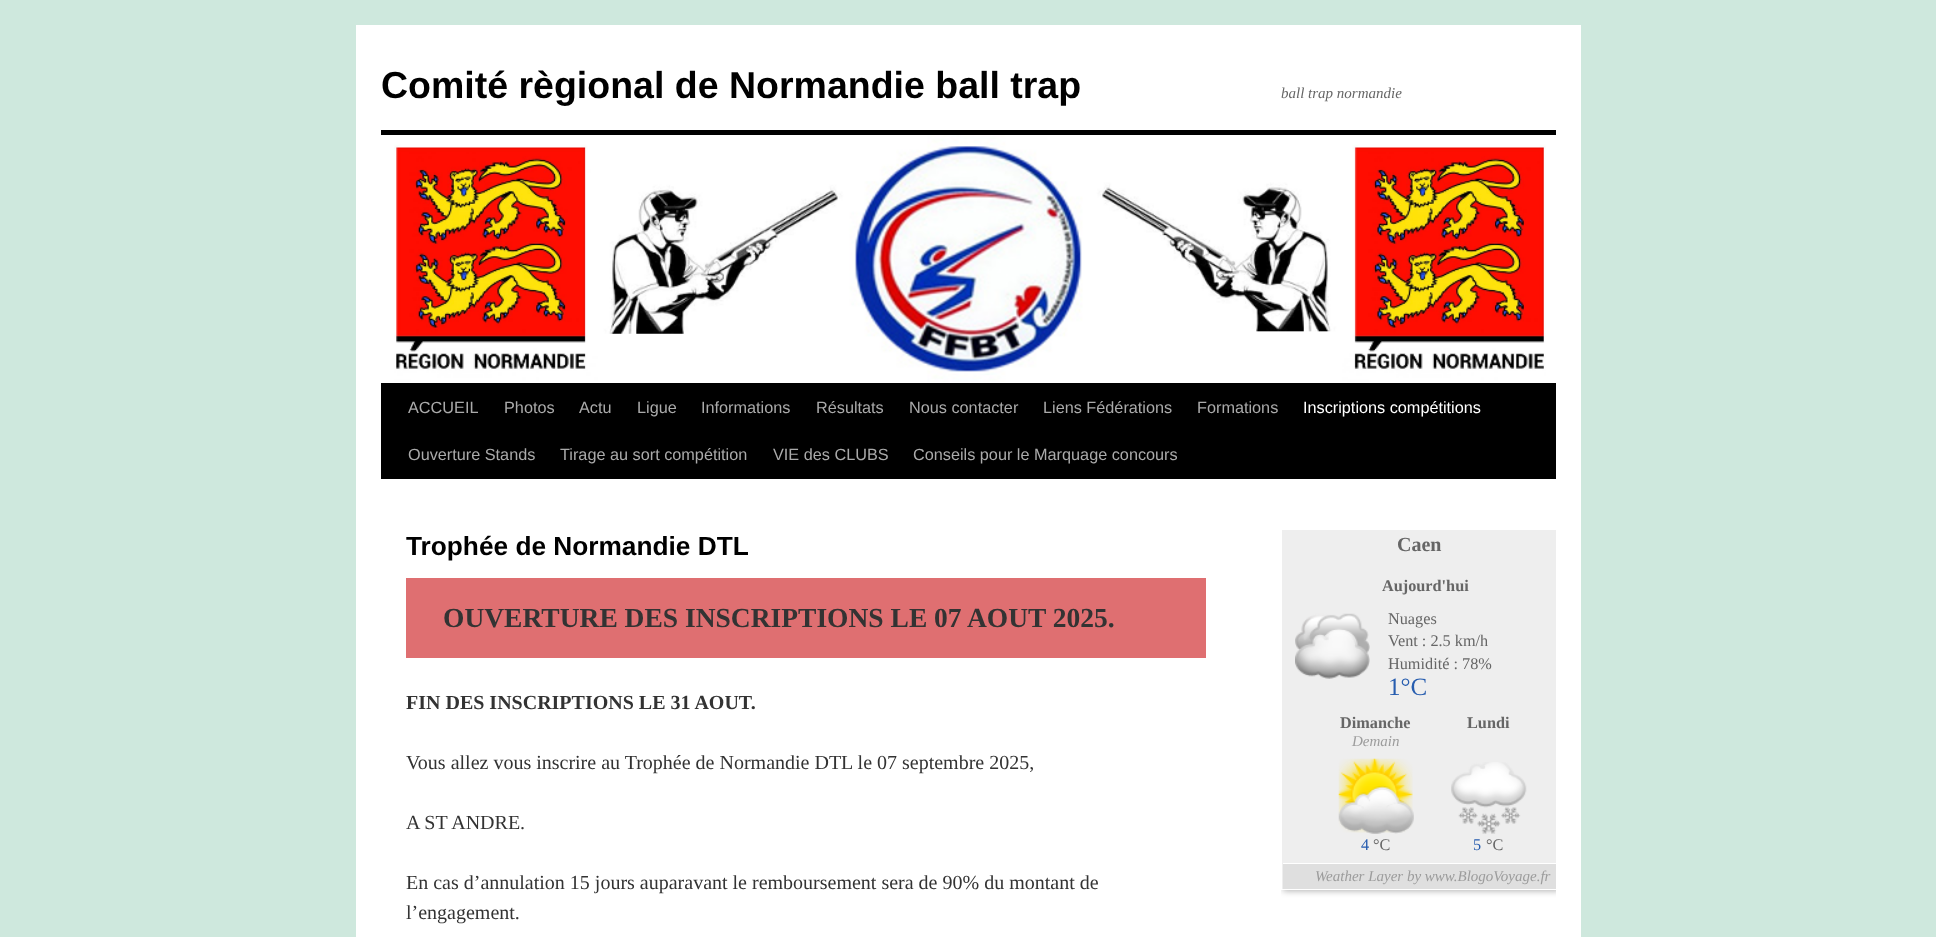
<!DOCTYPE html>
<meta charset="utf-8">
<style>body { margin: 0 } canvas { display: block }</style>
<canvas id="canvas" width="1936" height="937"></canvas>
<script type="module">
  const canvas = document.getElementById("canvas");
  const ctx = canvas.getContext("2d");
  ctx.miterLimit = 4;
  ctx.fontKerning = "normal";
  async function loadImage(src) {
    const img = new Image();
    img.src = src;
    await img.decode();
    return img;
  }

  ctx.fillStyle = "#cee8dd";
  ctx.fillRect(0, 0, 1936, 937);
  ctx.fillStyle = "#ffffff";
  ctx.fillRect(356, 25, 1225, 912);
  ctx.font = "bold 37.5px Liberation Sans";
  ctx.fillStyle = "#000000";
  ctx.fillText("Comité règional de Normandie ball trap", 381, 98);
  ctx.font = "italic 15px Liberation Serif";
  ctx.fillStyle = "#666666";
  ctx.fillText("ball trap normandie", 1281, 98);
  ctx.fillStyle = "#000000";
  ctx.fillRect(381, 130, 1175, 5);
  ctx.fillRect(381, 383, 1175, 96);
  ctx.drawImage(await loadImage("img1.png"), 394, 135, 1152, 247);
  ctx.font = "16.25px Liberation Sans";
  ctx.fillStyle = "#aaaaaa";
  ctx.fillText("ACCUEIL", 408, 413);
  ctx.fillText("Photos", 504, 413);
  ctx.fillText("Actu", 579, 413);
  ctx.fillText("Ligue", 637, 413);
  ctx.fillText("Informations", 701, 413);
  ctx.fillText("Résultats", 816, 413);
  ctx.fillText("Nous contacter", 909, 413);
  ctx.fillText("Liens Fédérations", 1043, 413);
  ctx.fillText("Formations", 1197, 413);
  ctx.fillStyle = "#ffffff";
  ctx.fillText("Inscriptions compétitions", 1303, 413);
  ctx.fillStyle = "#aaaaaa";
  ctx.fillText("Ouverture Stands", 408, 460);
  ctx.fillText("Tirage au sort compétition", 560, 460);
  ctx.fillText("VIE des CLUBS", 773, 460);
  ctx.fillText("Conseils pour le Marquage concours", 913, 460);
  ctx.font = "bold 26.25px Liberation Sans";
  ctx.fillStyle = "#000000";
  ctx.fillText("Trophée de Normandie DTL", 406, 555);
  ctx.fillStyle = "#df6f71";
  ctx.fillRect(406, 578, 800, 80);
  ctx.font = "bold 27.5px Liberation Serif";
  ctx.fillStyle = "#333333";
  ctx.fillText("OUVERTURE DES INSCRIPTIONS LE 07 AOUT 2025.", 443, 627);
  ctx.font = "bold 20px Liberation Serif";
  ctx.fillText("FIN DES INSCRIPTIONS LE 31 AOUT.", 406, 709);
  ctx.font = "20px Liberation Serif";
  ctx.fillText("Vous allez vous inscrire au Trophée de Normandie DTL le 07 septembre 2025,", 406, 769);
  ctx.fillText("A ST ANDRE.", 406, 829);
  ctx.fillText("En cas d’annulation 15 jours auparavant le remboursement sera de 90% du montant de", 406, 889);
  ctx.fillText("l’engagement.", 406, 919);
  ctx.save();
  ctx.beginPath();
  ctx.rect(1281, 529, 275, 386);
  ctx.clip();
  ctx.fillStyle = "rgba(0, 0, 0, 0.3)";
  ctx.filter = "blur(3px)";
  ctx.beginPath();
  ctx.rect(1283, 530, 277, 361);
  ctx.fill();
  ctx.filter = "none";
  ctx.restore();
  ctx.fillStyle = "#eeeeee";
  ctx.fillRect(1282, 530, 274, 359);
  ctx.save();
  ctx.beginPath();
  ctx.rect(1281, 529, 275, 386);
  ctx.clip();
  ctx.strokeStyle = "#ffffff";
  ctx.strokeRect(1281.5, 529.5, 277, 360);
  ctx.restore();
  ctx.font = "bold 20px Liberation Serif";
  ctx.fillStyle = "#666666";
  ctx.fillText("Caen", 1397, 551);
  ctx.font = "bold 16.25px Liberation Serif";
  ctx.fillText("Aujourd'hui", 1382, 591);
  ctx.drawImage(await loadImage("img2.png"), 1295, 613, 75, 66);
  ctx.font = "16.25px Liberation Serif";
  ctx.fillText("Nuages", 1388, 624);
  ctx.fillText("Vent : 2.5 km/h", 1388, 646);
  ctx.fillText("Humidité : 78%", 1388, 669);
  ctx.font = "25px Liberation Serif";
  ctx.fillStyle = "#275daf";
  ctx.fillText("1°C", 1388, 695);
  ctx.font = "bold 16.25px Liberation Serif";
  ctx.fillStyle = "#666666";
  ctx.fillText("Dimanche", 1340, 728);
  ctx.font = "italic 15px Liberation Serif";
  ctx.fillStyle = "#9c9c9c";
  ctx.fillText("Demain", 1352, 746);
  ctx.drawImage(await loadImage("img3.png"), 1338, 758, 76, 76);
  ctx.font = "16.25px Liberation Serif";
  ctx.fillStyle = "#275daf";
  ctx.fillText("4", 1361, 850);
  ctx.fillStyle = "#666666";
  ctx.fillText("°C", 1373, 850);
  ctx.font = "bold 16.25px Liberation Serif";
  ctx.fillText("Lundi", 1467, 728);
  ctx.drawImage(await loadImage("img4.png"), 1451, 762, 76, 72);
  ctx.font = "16.25px Liberation Serif";
  ctx.fillStyle = "#275daf";
  ctx.fillText("5", 1473, 850);
  ctx.fillStyle = "#666666";
  ctx.fillText("°C", 1486, 850);
  ctx.fillStyle = "#dfdfdf";
  ctx.fillRect(1283, 864, 273, 25);
  ctx.fillStyle = "#ffffff";
  ctx.fillRect(1283, 863, 273, 1);
  ctx.font = "italic 15px Liberation Serif";
  ctx.fillStyle = "#9c9c9c";
  ctx.fillText("Weather Layer by www.BlogoVoyage.fr", 1315, 881);
</script>
